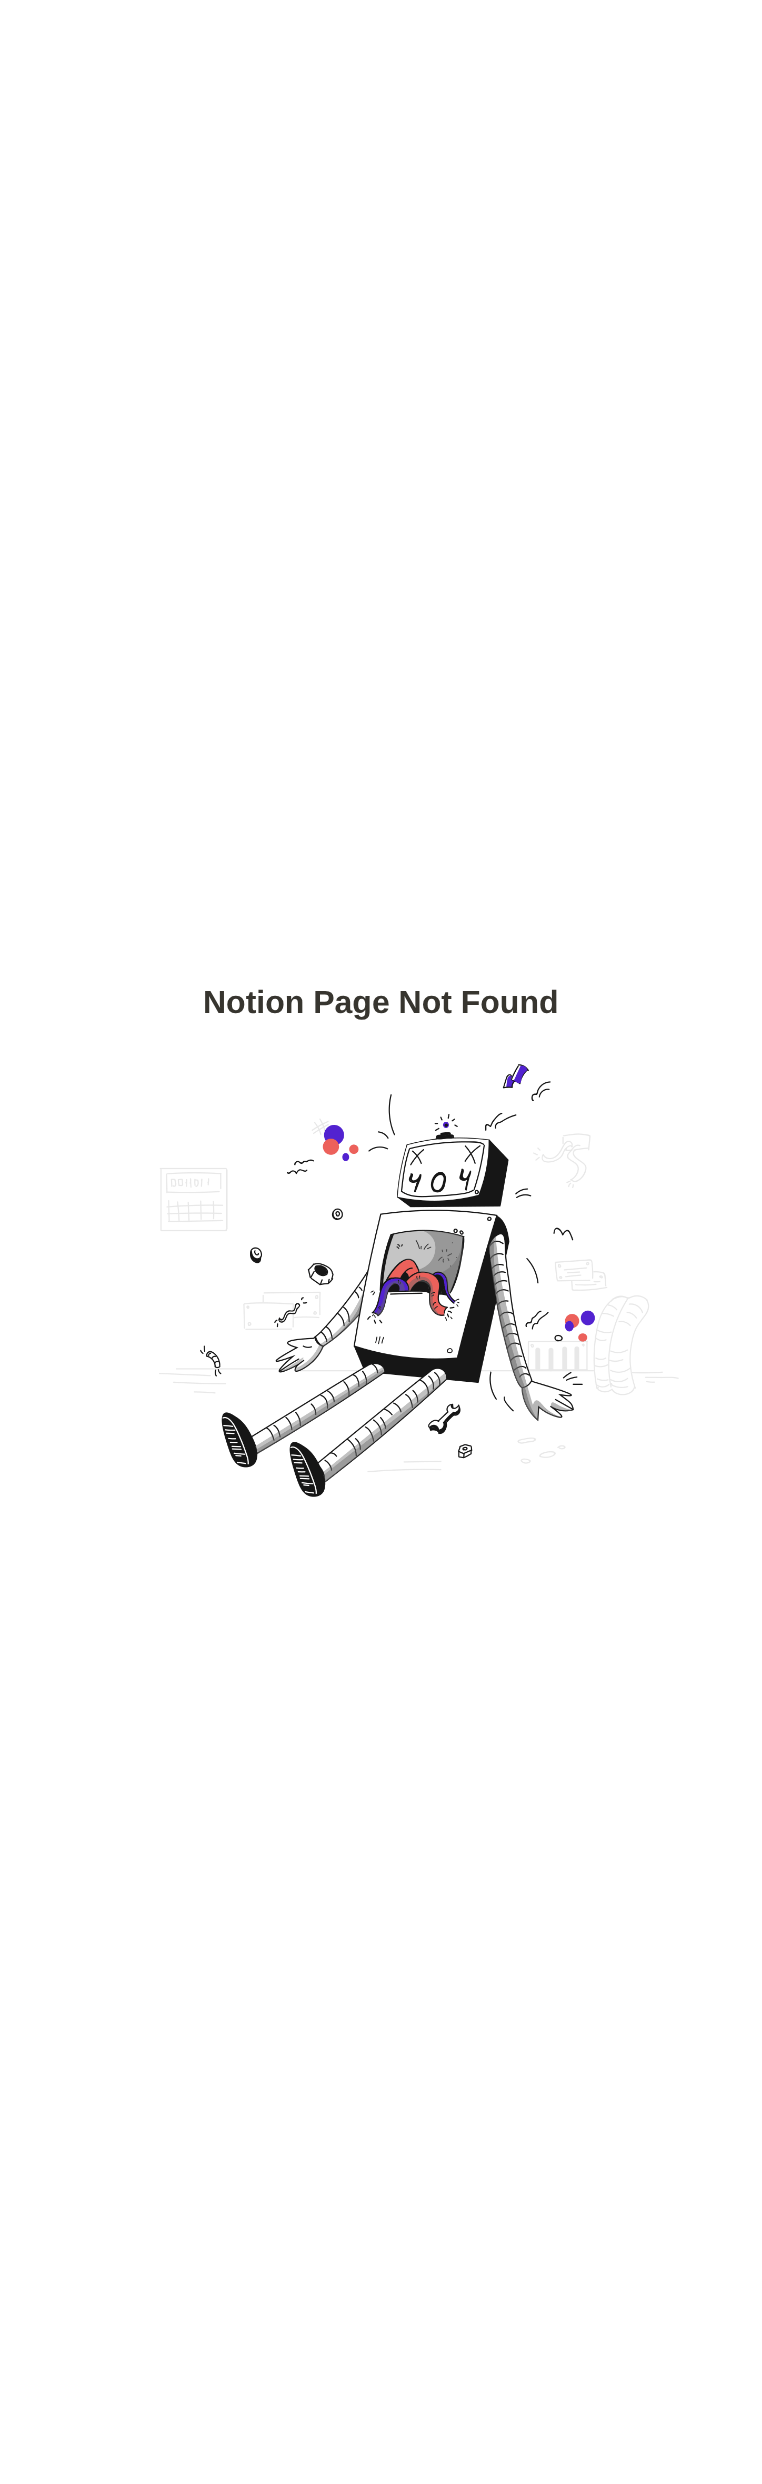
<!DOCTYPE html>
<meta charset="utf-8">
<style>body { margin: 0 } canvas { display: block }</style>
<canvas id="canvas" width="762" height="2484"></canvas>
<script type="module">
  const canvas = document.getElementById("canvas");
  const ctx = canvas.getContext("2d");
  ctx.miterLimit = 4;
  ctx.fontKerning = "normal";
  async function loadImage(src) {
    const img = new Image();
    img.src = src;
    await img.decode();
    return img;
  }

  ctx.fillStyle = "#ffffff";
  ctx.fillRect(0, 0, 762, 2484);
  ctx.font = "bold 32px Liberation Sans";
  ctx.fillStyle = "#37352f";
  ctx.fillText("Notion Page Not Found", 203, 1013);
  ctx.drawImage(await loadImage("img1.png"), 159, 1064, 520, 433);
</script>
